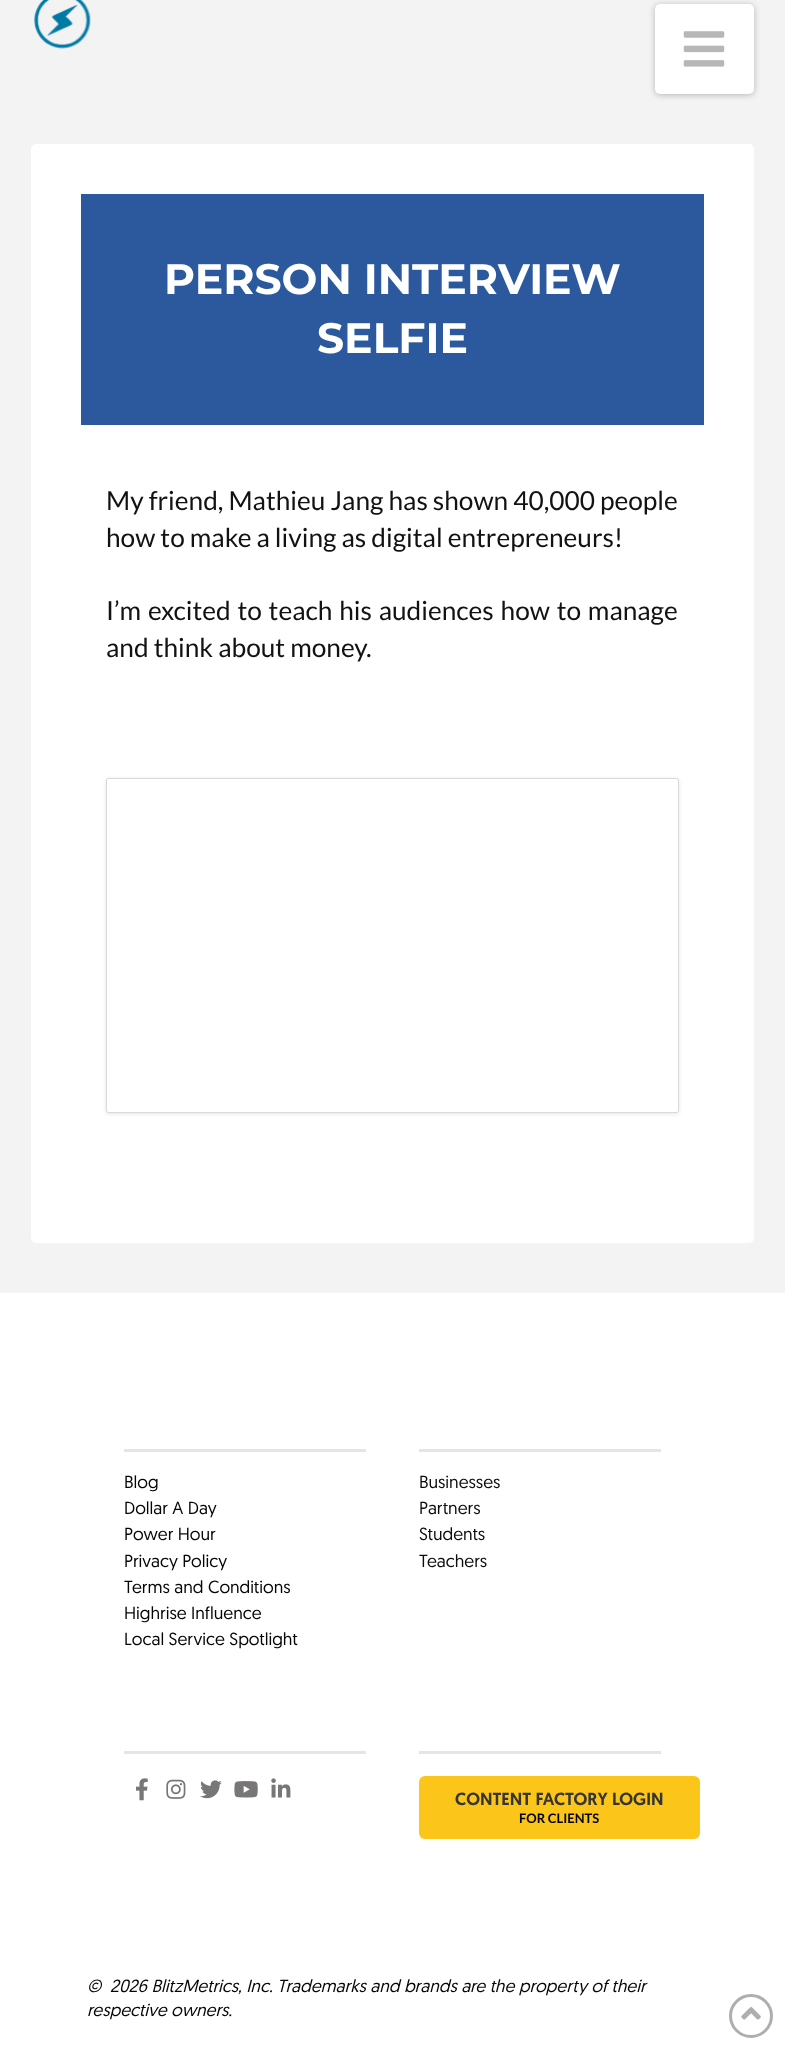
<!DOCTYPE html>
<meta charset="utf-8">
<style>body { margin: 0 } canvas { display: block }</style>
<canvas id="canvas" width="785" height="2050"></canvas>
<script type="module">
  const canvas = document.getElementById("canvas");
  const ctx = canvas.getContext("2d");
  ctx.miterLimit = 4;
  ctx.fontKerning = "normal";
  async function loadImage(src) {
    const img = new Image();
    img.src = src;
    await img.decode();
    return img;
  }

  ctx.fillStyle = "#f3f3f3";
  ctx.fillRect(0, 0, 785, 2050);
  ctx.drawImage(await loadImage("img1.png"), 34, 0, 57, 49);
  ctx.fillStyle = "rgba(0, 0, 0, 0.25)";
  ctx.filter = "blur(3px)";
  ctx.beginPath();
  ctx.roundRect(655, 5, 99, 90, 5);
  ctx.fill();
  ctx.filter = "none";
  ctx.fillStyle = "#ffffff";
  ctx.beginPath();
  ctx.roundRect(655, 4, 99, 90, 5);
  ctx.fill();
  ctx.drawImage(await loadImage("img2.png"), 683, 31, 42, 36);
  ctx.beginPath();
  ctx.roundRect(31, 144, 723, 1099, 5);
  ctx.fill();
  ctx.fillStyle = "#2c599d";
  ctx.fillRect(81, 194, 623, 231);
  ctx.font = "bold 42.5px Montserrat";
  ctx.fillStyle = "#ffffff";
  ctx.fillText("PERSON INTERVIEW", 164, 294);
  ctx.fillText("SELFIE", 317, 353);
  ctx.font = "26.25px Lato";
  ctx.fillStyle = "#121212";
  ctx.fillText("My friend, Mathieu Jang has shown 40,000 people", 106, 510);
  ctx.fillText("how to make a living as digital entrepreneurs!", 106, 547);
  ctx.wordSpacing = "1.75px";
  ctx.fillText("I’m excited to teach his audiences how to manage", 106, 620);
  ctx.wordSpacing = "0px";
  ctx.fillText("and think about money.", 106, 657);
  ctx.fillStyle = "rgba(0, 0, 0, 0.1)";
  ctx.filter = "blur(2px)";
  ctx.beginPath();
  ctx.roundRect(106, 779, 573, 335, 2.5);
  ctx.fill();
  ctx.filter = "none";
  ctx.fillStyle = "#ffffff";
  ctx.beginPath();
  ctx.roundRect(106, 778, 573, 335, 2.5);
  ctx.fill();
  ctx.beginPath();
  ctx.roundRect(106.5, 778.5, 572, 334, 2);
  ctx.strokeStyle = "rgba(0, 0, 0, 0.15)";
  ctx.stroke();
  ctx.fillRect(0, 1293, 785, 757);
  ctx.fillStyle = "#e5e5e5";
  ctx.fillRect(124, 1449, 242, 3);
  ctx.font = "17.5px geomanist";
  ctx.fillStyle = "#050505";
  ctx.fillText("Blog", 124, 1488);
  ctx.fillText("Dollar A Day", 124, 1514);
  ctx.fillText("Power Hour", 124, 1540);
  ctx.fillText("Privacy Policy", 124, 1567);
  ctx.fillText("Terms and Conditions", 124, 1593);
  ctx.fillText("Highrise Influence", 124, 1619);
  ctx.fillText("Local Service Spotlight", 124, 1645);
  ctx.fillStyle = "#e5e5e5";
  ctx.fillRect(419, 1449, 242, 3);
  ctx.fillStyle = "#0d0c0c";
  ctx.fillText("Businesses", 419, 1488);
  ctx.fillText("Partners", 419, 1514);
  ctx.fillText("Students", 419, 1540);
  ctx.fillText("Teachers", 419, 1567);
  ctx.fillStyle = "#e5e5e5";
  ctx.fillRect(124, 1751, 242, 3);
  ctx.drawImage(await loadImage("img3.png"), 136, 1778, 12, 23);
  ctx.drawImage(await loadImage("img4.png"), 166, 1779, 20, 20);
  ctx.drawImage(await loadImage("img5.png"), 200, 1780, 22, 19);
  ctx.drawImage(await loadImage("img6.png"), 234, 1781, 24, 17);
  ctx.drawImage(await loadImage("img7.png"), 271, 1778, 20, 20);
  ctx.fillRect(419, 1751, 242, 3);
  ctx.fillStyle = "#fbc51a";
  ctx.beginPath();
  ctx.roundRect(419, 1776, 281, 63, 6);
  ctx.fill();
  ctx.font = "500 17.5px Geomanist";
  ctx.fillStyle = "#353535";
  ctx.fillText("CONTENT FACTORY LOGIN", 455, 1805);
  ctx.font = "bold 13px Lato";
  ctx.fillStyle = "#050505";
  ctx.fillText("FOR CLIENTS", 519, 1823);
  ctx.font = "italic 17.5px geomanist";
  ctx.fillText("©", 87, 1992);
  ctx.fillText("2026 BlitzMetrics, Inc. Trademarks and brands are the property of their", 110, 1992);
  ctx.fillText("respective owners.", 87, 2016);
  ctx.beginPath();
  ctx.arc(751, 2016, 20.5, 0, Math.PI * 2);
  ctx.strokeStyle = "#aeaeae";
  ctx.lineWidth = 3;
  ctx.stroke();
  ctx.drawImage(await loadImage("img8.png"), 741, 2007, 20, 13);
</script>
